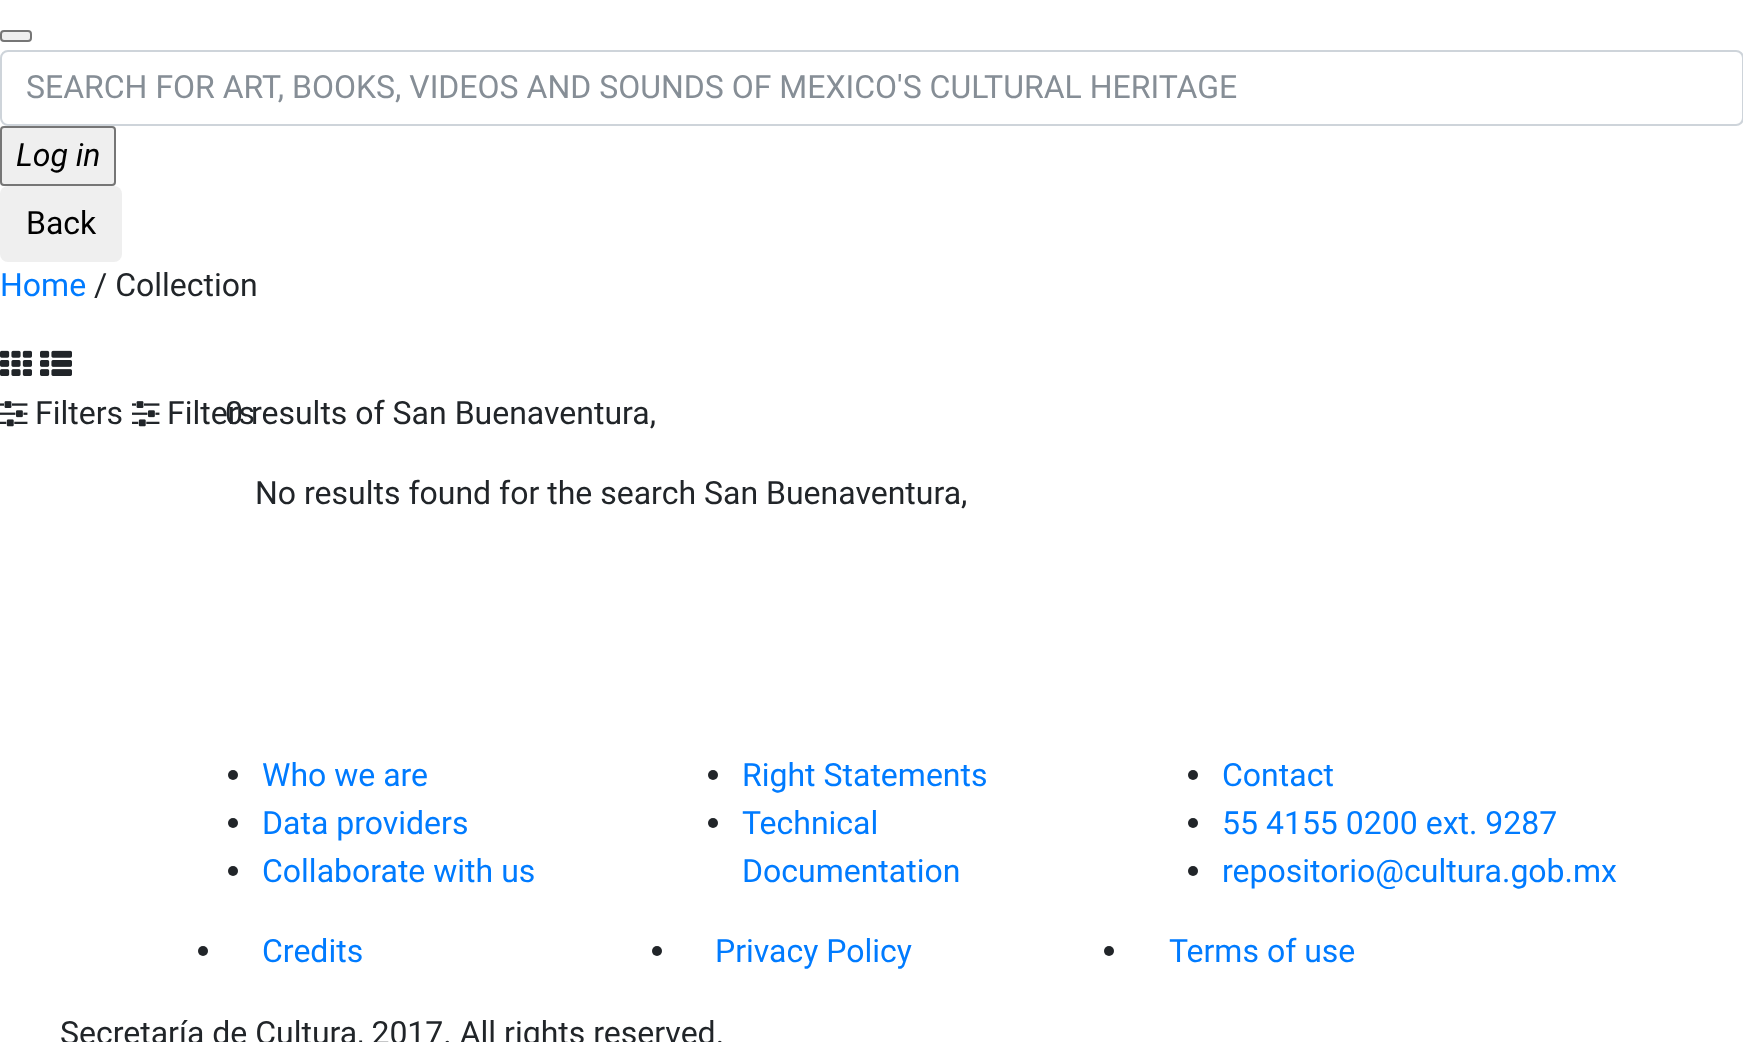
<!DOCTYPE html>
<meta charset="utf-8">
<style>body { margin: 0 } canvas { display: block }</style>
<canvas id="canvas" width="1743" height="1042"></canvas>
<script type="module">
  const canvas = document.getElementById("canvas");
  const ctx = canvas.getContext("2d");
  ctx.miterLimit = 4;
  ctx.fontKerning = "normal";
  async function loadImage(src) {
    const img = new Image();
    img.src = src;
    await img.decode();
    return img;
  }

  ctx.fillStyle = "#ffffff";
  ctx.fillRect(0, 0, 1743, 1042);
  ctx.fillStyle = "#efefef";
  ctx.beginPath();
  ctx.roundRect(1, 31, 30, 10, 3);
  ctx.fill();
  ctx.strokeStyle = "#767676";
  ctx.lineWidth = 2;
  ctx.stroke();
  ctx.beginPath();
  ctx.roundRect(1, 51, 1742, 74, 7);
  ctx.strokeStyle = "#ced4da";
  ctx.stroke();
  ctx.font = "32px Roboto";
  ctx.fillStyle = "#868e96";
  ctx.fillText("SEARCH FOR ART, BOOKS, VIDEOS AND SOUNDS OF MEXICO'S CULTURAL HERITAGE", 26, 98);
  ctx.fillStyle = "#efefef";
  ctx.beginPath();
  ctx.roundRect(1, 127, 114, 58, 3);
  ctx.fill();
  ctx.strokeStyle = "#767676";
  ctx.stroke();
  ctx.font = "italic 32px Roboto";
  ctx.fillStyle = "#000000";
  ctx.fillText("Log in", 16, 166);
  ctx.fillStyle = "#efefef";
  ctx.beginPath();
  ctx.roundRect(0, 186, 122, 76, 8);
  ctx.fill();
  ctx.font = "32px Roboto";
  ctx.fillStyle = "#000000";
  ctx.fillText("Back", 26, 234);
  ctx.fillStyle = "#007bff";
  ctx.fillText("Home", 0, 296);
  ctx.fillStyle = "#212529";
  ctx.fillText("/ Collection", 94, 296);
  ctx.drawImage(await loadImage("img1.png"), 0, 350, 32, 26);
  ctx.drawImage(await loadImage("img2.png"), 40, 350, 32, 26);
  ctx.drawImage(await loadImage("img3.png"), 0, 401, 28, 26);
  ctx.fillText("Filters", 35, 424);
  ctx.drawImage(await loadImage("img3.png"), 132, 401, 28, 26);
  ctx.fillText("Filters", 167, 424);
  ctx.fillText("0 results of San Buenaventura,", 225, 424);
  ctx.fillText("No results found for the search San Buenaventura,", 255, 504);
  ctx.beginPath();
  ctx.arc(233, 775, 5, 0, Math.PI * 2);
  ctx.fill();
  ctx.fillStyle = "#007bff";
  ctx.fillText("Who we are", 262, 786);
  ctx.fillStyle = "#212529";
  ctx.beginPath();
  ctx.arc(233, 823, 5, 0, Math.PI * 2);
  ctx.fill();
  ctx.fillStyle = "#007bff";
  ctx.fillText("Data providers", 262, 834);
  ctx.fillStyle = "#212529";
  ctx.beginPath();
  ctx.arc(233, 871, 5, 0, Math.PI * 2);
  ctx.fill();
  ctx.fillStyle = "#007bff";
  ctx.fillText("Collaborate with us", 262, 882);
  ctx.fillStyle = "#212529";
  ctx.beginPath();
  ctx.arc(713, 775, 5, 0, Math.PI * 2);
  ctx.fill();
  ctx.fillStyle = "#007bff";
  ctx.fillText("Right Statements", 742, 786);
  ctx.fillStyle = "#212529";
  ctx.beginPath();
  ctx.arc(713, 823, 5, 0, Math.PI * 2);
  ctx.fill();
  ctx.fillStyle = "#007bff";
  ctx.fillText("Technical", 742, 834);
  ctx.fillText("Documentation", 742, 882);
  ctx.fillStyle = "#212529";
  ctx.beginPath();
  ctx.arc(1193, 775, 5, 0, Math.PI * 2);
  ctx.fill();
  ctx.fillStyle = "#007bff";
  ctx.fillText("Contact", 1222, 786);
  ctx.fillStyle = "#212529";
  ctx.beginPath();
  ctx.arc(1193, 823, 5, 0, Math.PI * 2);
  ctx.fill();
  ctx.fillStyle = "#007bff";
  ctx.fillText("55 4155 0200 ext. 9287", 1222, 834);
  ctx.fillStyle = "#212529";
  ctx.beginPath();
  ctx.arc(1193, 871, 5, 0, Math.PI * 2);
  ctx.fill();
  ctx.fillStyle = "#007bff";
  ctx.fillText("repositorio@cultura.gob.mx", 1222, 882);
  ctx.fillStyle = "#212529";
  ctx.beginPath();
  ctx.arc(203, 951, 5, 0, Math.PI * 2);
  ctx.fill();
  ctx.fillStyle = "#007bff";
  ctx.fillText("Credits", 262, 962);
  ctx.fillStyle = "#212529";
  ctx.beginPath();
  ctx.arc(657, 951, 5, 0, Math.PI * 2);
  ctx.fill();
  ctx.fillStyle = "#007bff";
  ctx.fillText("Privacy Policy", 715, 962);
  ctx.fillStyle = "#212529";
  ctx.beginPath();
  ctx.arc(1109, 951, 5, 0, Math.PI * 2);
  ctx.fill();
  ctx.fillStyle = "#007bff";
  ctx.fillText("Terms of use", 1169, 962);
  ctx.fillStyle = "#212529";
  ctx.fillText("Secretaría de Cultura, 2017. All rights reserved.", 60, 1044);
</script>
